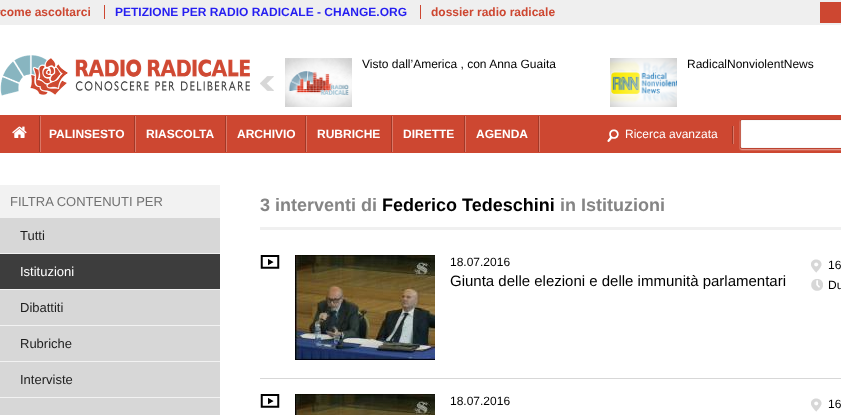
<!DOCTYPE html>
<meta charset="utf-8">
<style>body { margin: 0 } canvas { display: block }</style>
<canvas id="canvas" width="841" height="415"></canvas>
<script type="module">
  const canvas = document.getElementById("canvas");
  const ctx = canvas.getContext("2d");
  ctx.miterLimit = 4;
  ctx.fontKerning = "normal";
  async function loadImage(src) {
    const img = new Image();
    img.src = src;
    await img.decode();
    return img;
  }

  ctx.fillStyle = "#ffffff";
  ctx.fillRect(0, 0, 841, 415);
  ctx.fillStyle = "#efefef";
  ctx.fillRect(0, 0, 841, 25);
  ctx.font = "bold 12px Liberation Sans";
  ctx.fillStyle = "#cd4731";
  ctx.fillText("come ascoltarci", 0, 16);
  ctx.fillStyle = "#aaaaaa";
  ctx.beginPath();
  ctx.arc(0.5, 10.5, 0.5, 0, Math.PI * 2);
  ctx.fill();
  ctx.fillStyle = "#cd4731";
  ctx.fillRect(820, 2, 21, 21);
  ctx.fillStyle = "#251ef1";
  ctx.fillText("PETIZIONE PER RADIO RADICALE - CHANGE.ORG", 115, 16);
  ctx.fillStyle = "#cd4731";
  ctx.fillRect(104, 5, 1, 14);
  ctx.fillText("dossier radio radicale", 431, 16);
  ctx.fillRect(420, 5, 1, 14);
  ctx.drawImage(await loadImage("img1.png"), 0, 55, 250, 41);
  ctx.drawImage(await loadImage("img2.png"), 285, 58, 67, 49);
  ctx.font = "12px Liberation Sans";
  ctx.fillStyle = "#000000";
  ctx.fillText("Visto dall’America , con Anna Guaita", 362, 68);
  ctx.drawImage(await loadImage("img3.png"), 610, 58, 67, 49);
  ctx.fillText("RadicalNonviolentNews", 687, 68);
  ctx.drawImage(await loadImage("img4.png"), 260, 76, 14, 15);
  ctx.fillStyle = "#cd4731";
  ctx.fillRect(0, 115, 841, 38);
  ctx.drawImage(await loadImage("img5.png"), 12, 126, 15, 12);
  ctx.drawImage(await loadImage("img6.png"), 39, 116, 2, 36);
  ctx.drawImage(await loadImage("img6.png"), 134, 116, 2, 36);
  ctx.font = "bold 12px Liberation Sans";
  ctx.fillStyle = "#ffffff";
  ctx.fillText("PALINSESTO", 49, 138);
  ctx.drawImage(await loadImage("img6.png"), 225, 116, 2, 36);
  ctx.fillText("RIASCOLTA", 146, 138);
  ctx.drawImage(await loadImage("img6.png"), 305, 116, 2, 36);
  ctx.fillText("ARCHIVIO", 237, 138);
  ctx.drawImage(await loadImage("img6.png"), 391, 116, 2, 36);
  ctx.fillText("RUBRICHE", 317, 138);
  ctx.drawImage(await loadImage("img6.png"), 464, 116, 2, 36);
  ctx.fillText("DIRETTE", 403, 138);
  ctx.drawImage(await loadImage("img6.png"), 538, 116, 2, 36);
  ctx.fillText("AGENDA", 476, 138);
  ctx.drawImage(await loadImage("img7.png"), 607, 126, 127, 18);
  ctx.font = "12px Liberation Sans";
  ctx.fillText("Ricerca avanzata", 625, 138);
  ctx.drawImage(await loadImage("img8.png"), 739, 119, 102, 32);
  ctx.fillStyle = "#f2f2f2";
  ctx.fillRect(0, 185, 220, 33);
  ctx.font = "13px Liberation Sans";
  ctx.fillStyle = "#727272";
  ctx.fillText("FILTRA CONTENUTI PER", 10, 206);
  ctx.fillStyle = "#d7d7d7";
  ctx.fillRect(0, 218, 220, 35);
  ctx.fillStyle = "#f2f2f2";
  ctx.fillRect(0, 253, 220, 1);
  ctx.fillStyle = "#1d1d1d";
  ctx.fillText("Tutti", 20, 240);
  ctx.fillStyle = "#f2f2f2";
  ctx.fillRect(0, 289, 220, 1);
  ctx.fillStyle = "#3d3d3d";
  ctx.fillRect(0, 254, 220, 35);
  ctx.fillStyle = "#ffffff";
  ctx.fillText("Istituzioni", 20, 276);
  ctx.fillStyle = "#d7d7d7";
  ctx.fillRect(0, 290, 220, 35);
  ctx.fillStyle = "#f2f2f2";
  ctx.fillRect(0, 325, 220, 1);
  ctx.fillStyle = "#1d1d1d";
  ctx.fillText("Dibattiti", 20, 312);
  ctx.fillStyle = "#d7d7d7";
  ctx.fillRect(0, 326, 220, 35);
  ctx.fillStyle = "#f2f2f2";
  ctx.fillRect(0, 361, 220, 1);
  ctx.fillStyle = "#1d1d1d";
  ctx.fillText("Rubriche", 20, 348);
  ctx.fillStyle = "#d7d7d7";
  ctx.fillRect(0, 362, 220, 35);
  ctx.fillStyle = "#f2f2f2";
  ctx.fillRect(0, 397, 220, 1);
  ctx.fillStyle = "#1d1d1d";
  ctx.fillText("Interviste", 20, 384);
  ctx.fillStyle = "#d7d7d7";
  ctx.fillRect(0, 398, 220, 17);
  ctx.fillStyle = "#f0f0f0";
  ctx.fillRect(260, 227, 581, 3);
  ctx.font = "bold 18px Liberation Sans";
  ctx.fillStyle = "#858585";
  ctx.fillText("3 interventi di", 260, 211);
  ctx.fillStyle = "#000000";
  ctx.fillText("Federico Tedeschini", 382, 211);
  ctx.fillStyle = "#858585";
  ctx.fillText("in Istituzioni", 560, 211);
  ctx.fillStyle = "#d7d7d7";
  ctx.fillRect(260, 378, 581, 1);
  ctx.drawImage(await loadImage("img9.png"), 260, 255, 20, 14);
  ctx.drawImage(await loadImage("img10.png"), 295, 255, 140, 105);
  ctx.font = "12px Liberation Sans";
  ctx.fillStyle = "#000000";
  ctx.fillText("18.07.2016", 450, 266);
  ctx.font = "15px Liberation Sans";
  ctx.fillText("Giunta delle elezioni e delle immunità parlamentari", 450, 286);
  ctx.drawImage(await loadImage("img11.png"), 811, 259, 11, 14);
  ctx.font = "12px Liberation Sans";
  ctx.fillText("16", 828, 269);
  ctx.drawImage(await loadImage("img12.png"), 811, 279, 12, 12);
  ctx.fillText("Du", 828, 289);
  ctx.drawImage(await loadImage("img9.png"), 260, 394, 20, 14);
  ctx.drawImage(await loadImage("img13.png"), 295, 394, 140, 21);
  ctx.fillText("18.07.2016", 450, 405);
  ctx.drawImage(await loadImage("img11.png"), 811, 398, 11, 14);
  ctx.fillText("16", 828, 408);
</script>
